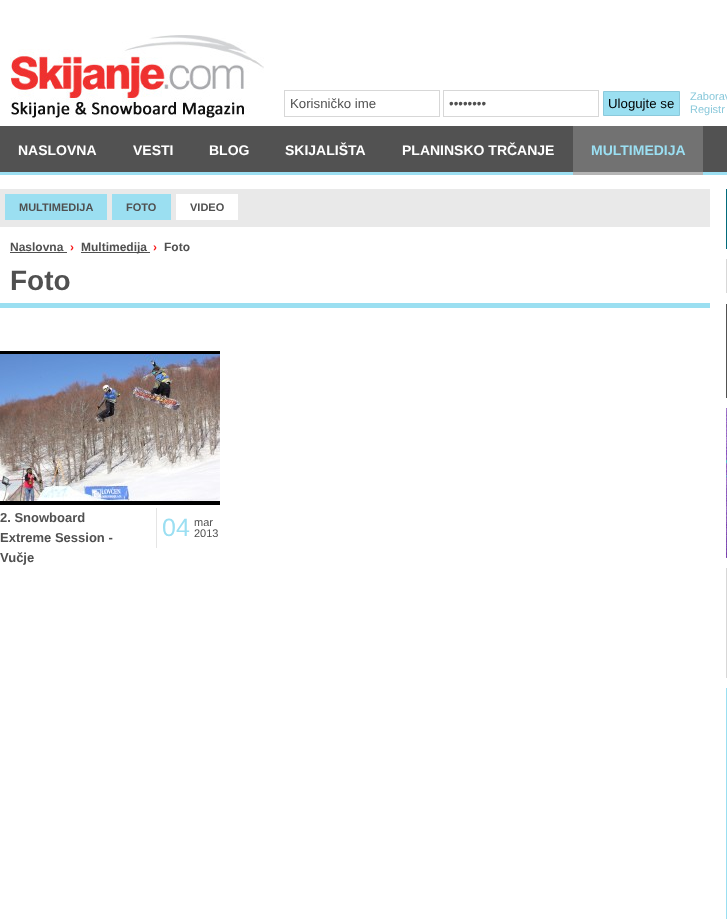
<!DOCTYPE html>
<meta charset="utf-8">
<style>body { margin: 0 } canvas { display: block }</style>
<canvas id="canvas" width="727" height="919"></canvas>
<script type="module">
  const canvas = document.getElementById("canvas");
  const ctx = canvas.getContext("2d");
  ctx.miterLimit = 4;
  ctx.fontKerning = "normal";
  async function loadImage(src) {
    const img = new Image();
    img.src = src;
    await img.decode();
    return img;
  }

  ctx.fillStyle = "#ffffff";
  ctx.fillRect(0, 0, 727, 919);
  ctx.drawImage(await loadImage("img1.png"), 10, 35, 254, 83);
  ctx.strokeStyle = "#d7d7d7";
  ctx.strokeRect(284.5, 90.5, 155, 26);
  ctx.font = "13.25px Liberation Sans";
  ctx.fillStyle = "#505050";
  ctx.fillText("Korisničko ime", 290, 108);
  ctx.strokeRect(443.5, 90.5, 155, 26);
  ctx.fillText("••••••••", 449, 108);
  ctx.fillStyle = "#9bdff1";
  ctx.beginPath();
  ctx.rect(603.5, 91.5, 76, 24);
  ctx.fill();
  ctx.strokeStyle = "#8bc9db";
  ctx.stroke();
  ctx.fillStyle = "#000000";
  ctx.fillText("Ulogujte se", 608, 108);
  ctx.font = "11px Liberation Sans";
  ctx.fillStyle = "#8bc9db";
  ctx.fillText("Zaborav", 690, 100);
  ctx.fillText("Registr", 690, 113);
  ctx.drawImage(await loadImage("img2.png"), 0, 126, 727, 49);
  ctx.font = "bold 14px Liberation Sans";
  ctx.fillStyle = "#ffffff";
  ctx.fillText("NASLOVNA", 18, 155);
  ctx.fillText("VESTI", 133, 155);
  ctx.fillText("BLOG", 209, 155);
  ctx.fillText("SKIJALIŠTA", 285, 155);
  ctx.fillText("PLANINSKO TRČANJE", 402, 155);
  ctx.fillStyle = "#727272";
  ctx.fillRect(573, 126, 130, 46);
  ctx.fillStyle = "#b5b5b5";
  ctx.fillRect(573, 172, 130, 3);
  ctx.fillStyle = "#9bdff2";
  ctx.fillText("MULTIMEDIJA", 591, 155);
  ctx.fillStyle = "#e9e9e9";
  ctx.fillRect(0, 189, 710, 38);
  ctx.fillStyle = "#9bdff1";
  ctx.fillRect(5, 194, 102, 26);
  ctx.font = "bold 11px Liberation Sans";
  ctx.fillStyle = "#505050";
  ctx.fillText("MULTIMEDIJA", 19, 211);
  ctx.fillStyle = "#9bdff1";
  ctx.fillRect(112, 194, 59, 26);
  ctx.fillStyle = "#505050";
  ctx.fillText("FOTO", 126, 211);
  ctx.fillStyle = "#ffffff";
  ctx.fillRect(176, 194, 62, 26);
  ctx.fillStyle = "#505050";
  ctx.fillText("VIDEO", 190, 211);
  ctx.font = "bold 12px Liberation Sans";
  ctx.fillText("Naslovna", 10, 251);
  ctx.fillRect(10, 252, 57, 1);
  ctx.fillStyle = "#f91718";
  ctx.fillText("›", 70, 251);
  ctx.fillStyle = "#505050";
  ctx.fillRect(81, 252, 69, 1);
  ctx.fillText("Multimedija", 81, 251);
  ctx.fillStyle = "#f91718";
  ctx.fillText("›", 153, 251);
  ctx.fillStyle = "#505050";
  ctx.fillText("Foto", 164, 251);
  ctx.fillStyle = "#9bdff1";
  ctx.fillRect(0, 303, 710, 5);
  ctx.font = "bold 28px Liberation Sans";
  ctx.fillStyle = "#505050";
  ctx.fillText("Foto", 10, 290);
  ctx.fillStyle = "#000000";
  ctx.fillRect(0, 351, 220, 154);
  ctx.drawImage(await loadImage("img3.png"), 0, 354, 220, 147);
  ctx.font = "bold 13px Liberation Sans";
  ctx.fillStyle = "#505050";
  ctx.fillText("2. Snowboard", 0, 522);
  ctx.fillText("Extreme Session -", 0, 542);
  ctx.fillText("Vučje", 0, 562);
  ctx.fillStyle = "#e5e5e5";
  ctx.fillRect(156, 508, 1, 40);
  ctx.font = "25px Liberation Sans";
  ctx.fillStyle = "#9bdff2";
  ctx.fillText("04", 162, 536);
  ctx.font = "11px Liberation Sans";
  ctx.fillStyle = "#505050";
  ctx.fillText("mar", 194, 526);
  ctx.fillText("2013", 194, 537);
  ctx.fillStyle = "#036b7b";
  ctx.fillRect(726, 189, 1, 60);
  ctx.strokeStyle = "#d7d7d7";
  ctx.strokeRect(726.5, 259.5, 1, 33);
  ctx.fillStyle = "#525252";
  ctx.fillRect(726, 304, 1, 94);
  ctx.drawImage(await loadImage("img4.png"), 726, 408, 1, 150);
  ctx.strokeRect(726.5, 568.5, 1, 109);
  ctx.fillStyle = "#9bdff1";
  ctx.fillRect(726, 688, 1, 231);
</script>
